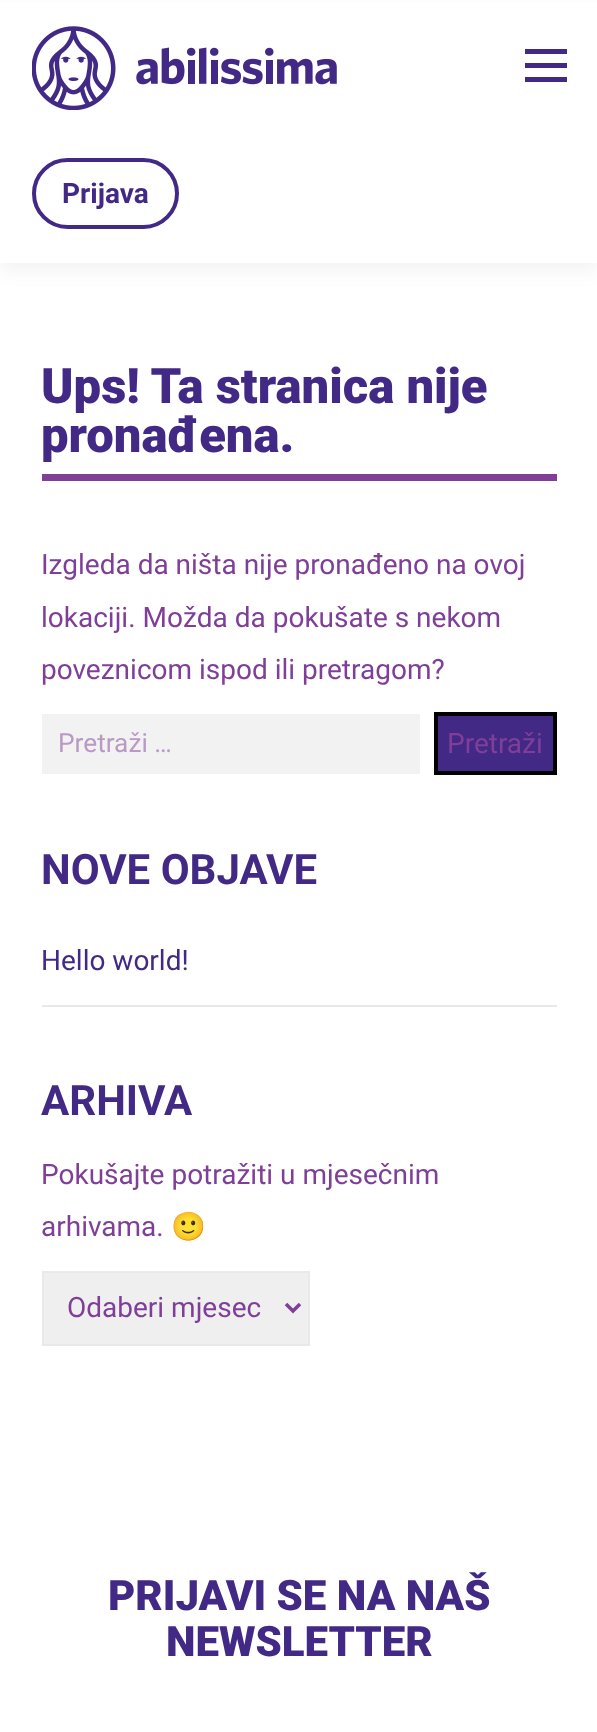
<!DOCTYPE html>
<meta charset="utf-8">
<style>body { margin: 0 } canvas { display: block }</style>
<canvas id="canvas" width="597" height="1732"></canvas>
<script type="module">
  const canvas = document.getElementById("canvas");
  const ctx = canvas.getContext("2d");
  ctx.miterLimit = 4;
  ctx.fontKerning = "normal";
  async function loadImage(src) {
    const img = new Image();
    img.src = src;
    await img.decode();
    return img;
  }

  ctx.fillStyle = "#ffffff";
  ctx.fillRect(0, 0, 597, 1732);
  ctx.fillStyle = "rgba(50, 50, 50, 0.06)";
  ctx.filter = "blur(9px)";
  ctx.beginPath();
  ctx.rect(0, 9, 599, 262);
  ctx.fill();
  ctx.filter = "none";
  ctx.fillStyle = "#ffffff";
  ctx.fillRect(0, 2, 597, 261);
  ctx.drawImage(await loadImage("img1.png"), 32, 26, 305, 84);
  ctx.fillStyle = "#412985";
  ctx.fillRect(525, 63, 42, 5);
  ctx.fillRect(525, 49, 42, 5);
  ctx.fillRect(525, 77, 42, 5);
  ctx.beginPath();
  ctx.roundRect(34, 160, 143, 67, 33.5);
  ctx.strokeStyle = "#412985";
  ctx.lineWidth = 4;
  ctx.stroke();
  ctx.font = "bold 28px Roboto";
  ctx.fillText("Prijava", 62, 203);
  ctx.font = "900 49px Roboto";
  ctx.fillText("Ups! Ta stranica nije", 41, 403);
  ctx.fillText("pronađena.", 41, 452);
  ctx.fillStyle = "#7f3f98";
  ctx.fillRect(42, 474, 515, 7);
  ctx.font = "28px Roboto";
  ctx.fillText("Izgleda da ništa nije pronađeno na ovoj", 41, 574);
  ctx.fillText("lokaciji. Možda da pokušate s nekom", 41, 627);
  ctx.fillText("poveznicom ispod ili pretragom?", 41, 679);
  ctx.fillStyle = "#f2f2f2";
  ctx.fillRect(42, 714, 378, 60);
  ctx.font = "26.25px Roboto";
  ctx.fillStyle = "#b999c5";
  ctx.fillText("Pretraži …", 58, 752);
  ctx.fillStyle = "#412985";
  ctx.beginPath();
  ctx.rect(436, 714, 119, 59);
  ctx.fill();
  ctx.strokeStyle = "#000000";
  ctx.stroke();
  ctx.font = "28px Roboto";
  ctx.fillStyle = "#7f3f98";
  ctx.fillText("Pretraži", 447, 753);
  ctx.font = "bold 42px Roboto";
  ctx.fillStyle = "#412985";
  ctx.fillText("NOVE OBJAVE", 41, 884);
  ctx.fillStyle = "#e9e9e9";
  ctx.fillRect(42, 1005, 515, 2);
  ctx.font = "28px Roboto";
  ctx.fillStyle = "#412985";
  ctx.fillText("Hello world!", 41, 970);
  ctx.font = "bold 42px Roboto";
  ctx.fillText("ARHIVA", 41, 1115);
  ctx.font = "28px Roboto";
  ctx.fillStyle = "#7f3f98";
  ctx.fillText("Pokušajte potražiti u mjesečnim", 41, 1184);
  ctx.fillText("arhivama.", 41, 1236);
  ctx.font = "28px Noto Color Emoji";
  ctx.fillText("🙂", 171, 1236);
  ctx.fillStyle = "#efefef";
  ctx.beginPath();
  ctx.rect(43, 1272, 266, 73);
  ctx.fill();
  ctx.strokeStyle = "#e9e9e9";
  ctx.lineWidth = 2;
  ctx.stroke();
  ctx.beginPath();
  ctx.moveTo(286, 1304);
  ctx.lineTo(293, 1311);
  ctx.lineTo(300, 1304);
  ctx.strokeStyle = "#7f3f98";
  ctx.lineWidth = 3.5;
  ctx.stroke();
  ctx.font = "28px Roboto";
  ctx.fillStyle = "#7f3f98";
  ctx.fillText("Odaberi mjesec", 67, 1317);
  ctx.font = "900 42px Roboto";
  ctx.fillStyle = "#412985";
  ctx.fillText("PRIJAVI SE NA NAŠ", 108, 1610);
  ctx.fillText("NEWSLETTER", 166, 1656);
</script>
